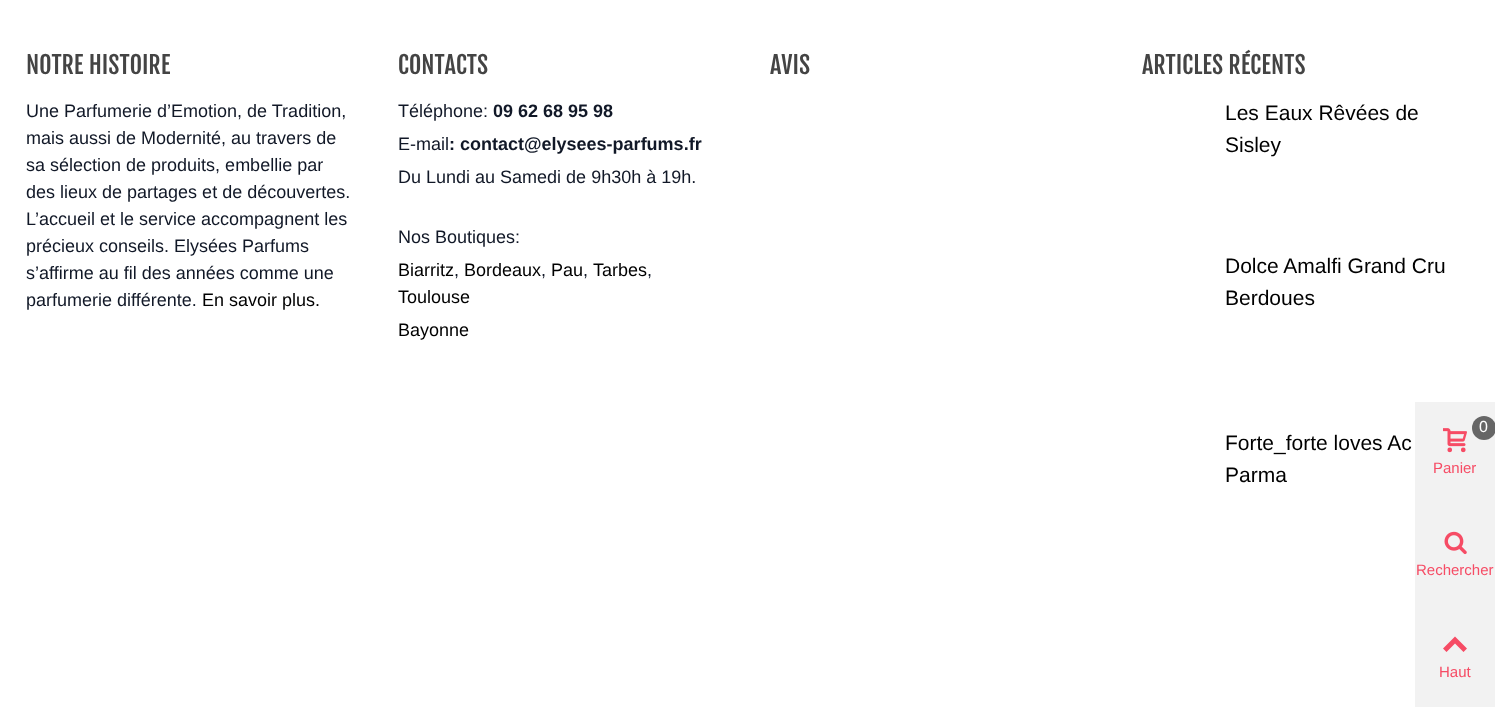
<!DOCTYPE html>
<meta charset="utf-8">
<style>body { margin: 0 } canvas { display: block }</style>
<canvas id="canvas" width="1495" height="707"></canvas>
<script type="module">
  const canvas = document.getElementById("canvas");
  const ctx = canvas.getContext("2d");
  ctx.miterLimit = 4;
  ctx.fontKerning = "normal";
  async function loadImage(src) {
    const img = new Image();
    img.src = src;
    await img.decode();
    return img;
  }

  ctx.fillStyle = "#ffffff";
  ctx.fillRect(0, 0, 1495, 707);
  ctx.font = "24px Fjalla One";
  ctx.fillStyle = "#444444";
  ctx.fillText("NOTRE HISTOIRE", 26, 74);
  ctx.font = "18px Liberation Sans";
  ctx.fillStyle = "#111827";
  ctx.fillText("Une Parfumerie d’Emotion, de Tradition,", 26, 117);
  ctx.fillText("mais aussi de Modernité, au travers de", 26, 144);
  ctx.fillText("sa sélection de produits, embellie par", 26, 171);
  ctx.fillText("des lieux de partages et de découvertes.", 26, 198);
  ctx.fillText("L’accueil et le service accompagnent les", 26, 225);
  ctx.fillText("précieux conseils. Elysées Parfums", 26, 252);
  ctx.fillText("s’affirme au fil des années comme une", 26, 279);
  ctx.fillText("parfumerie différente.", 26, 306);
  ctx.fillStyle = "#000000";
  ctx.fillText("En savoir plus.", 202, 306);
  ctx.font = "24px Fjalla One";
  ctx.fillStyle = "#444444";
  ctx.fillText("CONTACTS", 398, 74);
  ctx.font = "18px Liberation Sans";
  ctx.fillStyle = "#111827";
  ctx.fillText("Téléphone:", 398, 117);
  ctx.font = "bold 18px Liberation Sans";
  ctx.fillText("09 62 68 95 98", 493, 117);
  ctx.font = "18px Liberation Sans";
  ctx.fillText("E-mail", 398, 150);
  ctx.font = "bold 18px Liberation Sans";
  ctx.fillText(": contact@elysees-parfums.fr", 449, 150);
  ctx.font = "18px Liberation Sans";
  ctx.fillText("Du Lundi au Samedi de 9h30h à 19h.", 398, 183);
  ctx.fillText("Nos Boutiques:", 398, 243);
  ctx.fillStyle = "#000000";
  ctx.fillText("Biarritz", 398, 276);
  ctx.fillStyle = "#111827";
  ctx.fillText(",", 454, 276);
  ctx.fillStyle = "#000000";
  ctx.fillText("Bordeaux", 464, 276);
  ctx.fillStyle = "#111827";
  ctx.fillText(",", 541, 276);
  ctx.fillStyle = "#000000";
  ctx.fillText("Pau", 551, 276);
  ctx.fillStyle = "#111827";
  ctx.fillText(",", 583, 276);
  ctx.fillStyle = "#000000";
  ctx.fillText("Tarbes", 593, 276);
  ctx.fillStyle = "#111827";
  ctx.fillText(",", 647, 276);
  ctx.fillStyle = "#000000";
  ctx.fillText("Toulouse", 398, 303);
  ctx.fillText("Bayonne", 398, 336);
  ctx.font = "24px Fjalla One";
  ctx.fillStyle = "#444444";
  ctx.fillText("AVIS", 770, 74);
  ctx.fillText("ARTICLES RÉCENTS", 1142, 74);
  ctx.font = "21px Liberation Sans";
  ctx.fillStyle = "#000000";
  ctx.fillText("Les Eaux Rêvées de", 1225, 120);
  ctx.fillText("Sisley", 1225, 152);
  ctx.fillText("Dolce Amalfi Grand Cru", 1225, 273);
  ctx.fillText("Berdoues", 1225, 305);
  ctx.fillText("Forte_forte loves Ac", 1225, 450);
  ctx.fillText("Parma", 1225, 482);
  ctx.fillStyle = "#f2f2f2";
  ctx.fillRect(1415, 402, 80, 305);
  ctx.fillStyle = "#666666";
  ctx.beginPath();
  ctx.arc(1484, 428, 12, 0, Math.PI * 2);
  ctx.fill();
  ctx.font = "16px Liberation Sans";
  ctx.fillStyle = "#ffffff";
  ctx.fillText("0", 1479, 432);
  ctx.drawImage(await loadImage("img1.png"), 1443, 428, 24, 25);
  ctx.font = "15px Liberation Sans";
  ctx.fillStyle = "#f64c65";
  ctx.fillText("Panier", 1433, 473);
  ctx.drawImage(await loadImage("img2.png"), 1444, 531, 23, 24);
  ctx.fillText("Rechercher", 1416, 575);
  ctx.beginPath();
  ctx.moveTo(1443, 648.5);
  ctx.lineTo(1455, 636.5);
  ctx.lineTo(1467, 648.5);
  ctx.lineTo(1463.5, 652);
  ctx.lineTo(1455, 643.5);
  ctx.lineTo(1446.5, 652);
  ctx.closePath();
  ctx.fill();
  ctx.fillText("Haut", 1439, 677);
</script>
